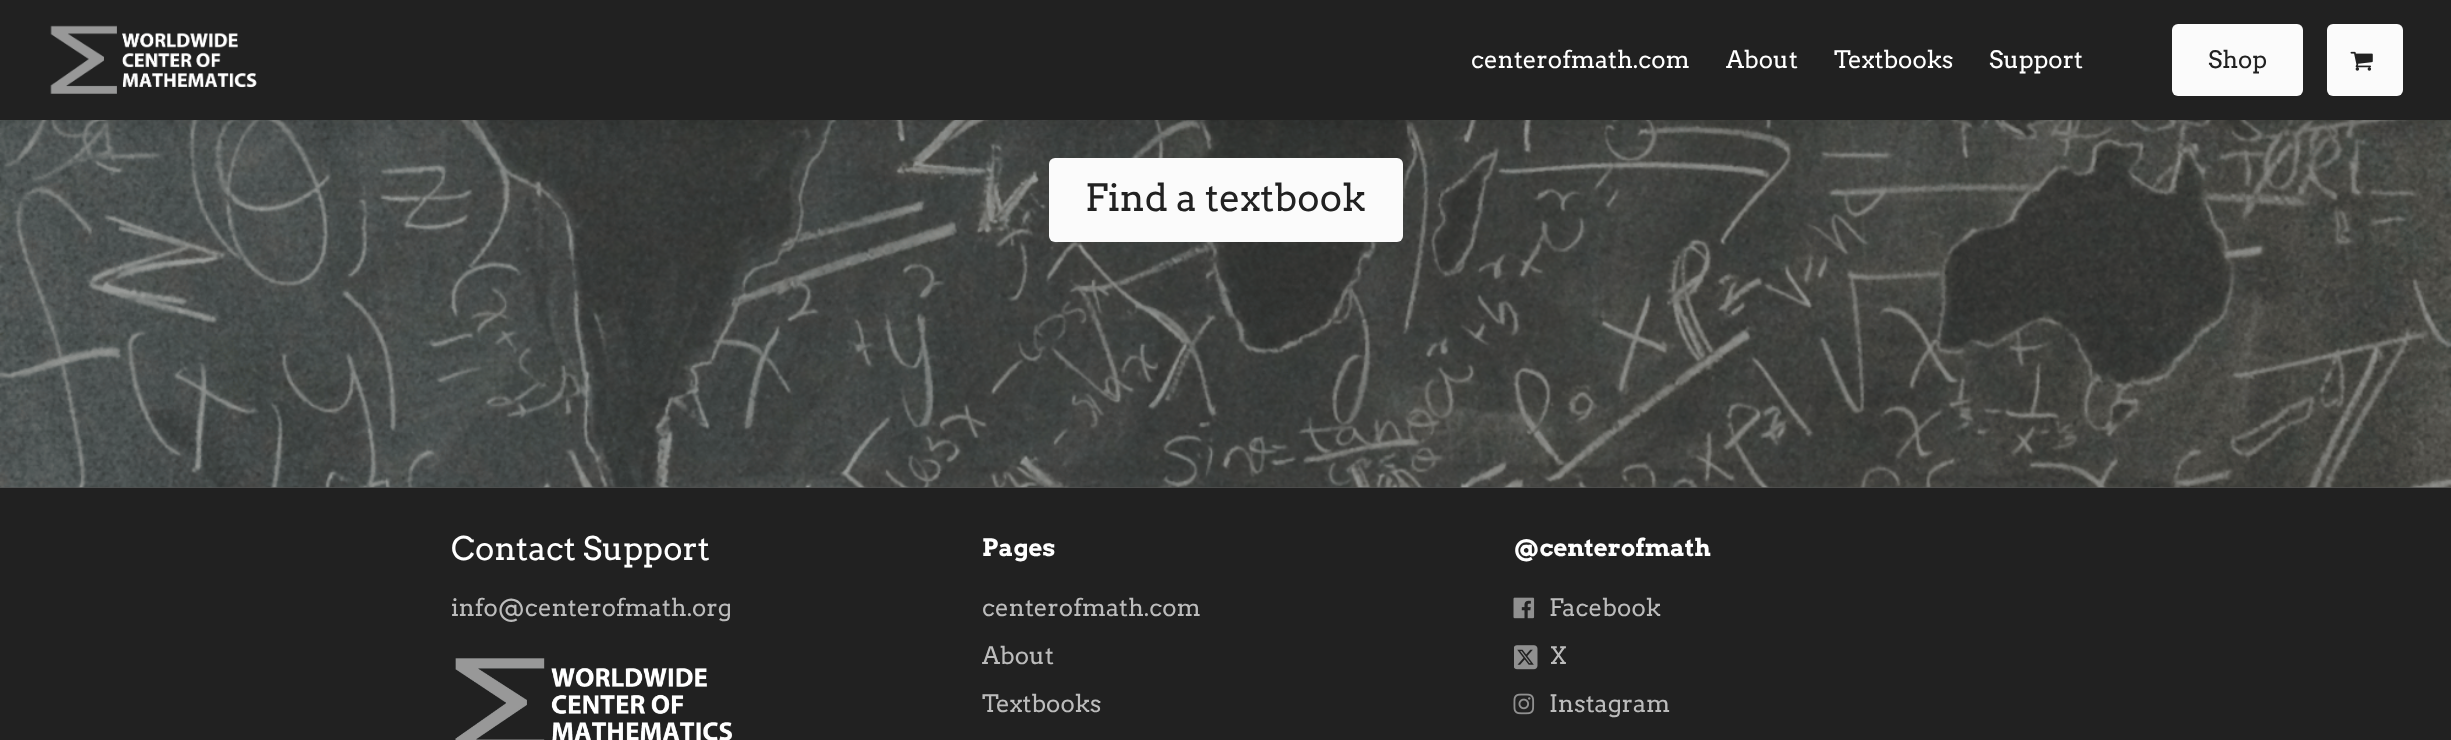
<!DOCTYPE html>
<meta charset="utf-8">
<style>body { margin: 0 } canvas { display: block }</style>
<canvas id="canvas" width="2451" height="740"></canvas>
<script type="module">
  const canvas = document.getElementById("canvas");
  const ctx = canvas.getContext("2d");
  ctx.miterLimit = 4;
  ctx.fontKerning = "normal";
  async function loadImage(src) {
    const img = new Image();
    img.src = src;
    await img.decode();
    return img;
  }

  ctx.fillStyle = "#505050";
  ctx.fillRect(0, 0, 2451, 740);
  ctx.drawImage(await loadImage("img3.png"), 0, 120, 2451, 368);
  ctx.fillStyle = "#fbfbfb";
  ctx.beginPath();
  ctx.roundRect(1049, 158, 354, 84, 6);
  ctx.fill();
  ctx.fillStyle = "rgba(0, 0, 0, 0.12)";
  ctx.filter = "blur(12px)";
  ctx.beginPath();
  ctx.rect(0, 3, 2451, 120);
  ctx.fill();
  ctx.filter = "none";
  ctx.fillStyle = "#212121";
  ctx.fillRect(0, 0, 2451, 120);
  ctx.drawImage(await loadImage("img1.png"), 50, 25, 207, 69);
  ctx.font = "24px Arvo";
  ctx.fillStyle = "#ffffff";
  ctx.fillText("centerofmath.com", 1471, 68);
  ctx.fillText("About", 1726, 68);
  ctx.fillText("Textbooks", 1834, 68);
  ctx.fillText("Support", 1989, 68);
  ctx.fillStyle = "#fbfbfb";
  ctx.beginPath();
  ctx.roundRect(2172, 24, 131, 72, 6);
  ctx.fill();
  ctx.fillStyle = "#212121";
  ctx.fillText("Shop", 2208, 68);
  ctx.fillStyle = "#fbfbfb";
  ctx.beginPath();
  ctx.roundRect(2327, 24, 76, 72, 6);
  ctx.fill();
  ctx.drawImage(await loadImage("img2.png"), 2350, 51, 23, 20);
  ctx.font = "37.5px Arvo";
  ctx.fillStyle = "#212121";
  ctx.fillText("Find a textbook", 1085, 211);
  ctx.fillRect(0, 488, 2451, 252);
  ctx.font = "32.5px Arvo";
  ctx.fillStyle = "#ffffff";
  ctx.fillText("Contact Support", 451, 560);
  ctx.font = "24px Arvo";
  ctx.fillStyle = "#bcbcbc";
  ctx.fillText("info@centerofmath.org", 451, 616);
  ctx.drawImage(await loadImage("img4.png"), 455, 658, 278, 82);
  ctx.font = "bold 24px Arvo";
  ctx.fillStyle = "#ffffff";
  ctx.fillText("Pages", 982, 556);
  ctx.font = "24px Arvo";
  ctx.fillStyle = "#bcbcbc";
  ctx.fillText("centerofmath.com", 982, 616);
  ctx.fillText("About", 982, 664);
  ctx.fillText("Textbooks", 982, 712);
  ctx.font = "bold 24px Arvo";
  ctx.fillStyle = "#ffffff";
  ctx.fillText("@centerofmath", 1513, 556);
  ctx.drawImage(await loadImage("img5.png"), 1513, 597, 22, 22);
  ctx.font = "24px Arvo";
  ctx.fillStyle = "#bcbcbc";
  ctx.fillText("Facebook", 1549, 616);
  ctx.drawImage(await loadImage("img6.png"), 1514, 645, 24, 25);
  ctx.fillText("X", 1549, 664);
  ctx.drawImage(await loadImage("img7.png"), 1513, 693, 22, 22);
  ctx.fillText("Instagram", 1549, 712);
</script>
